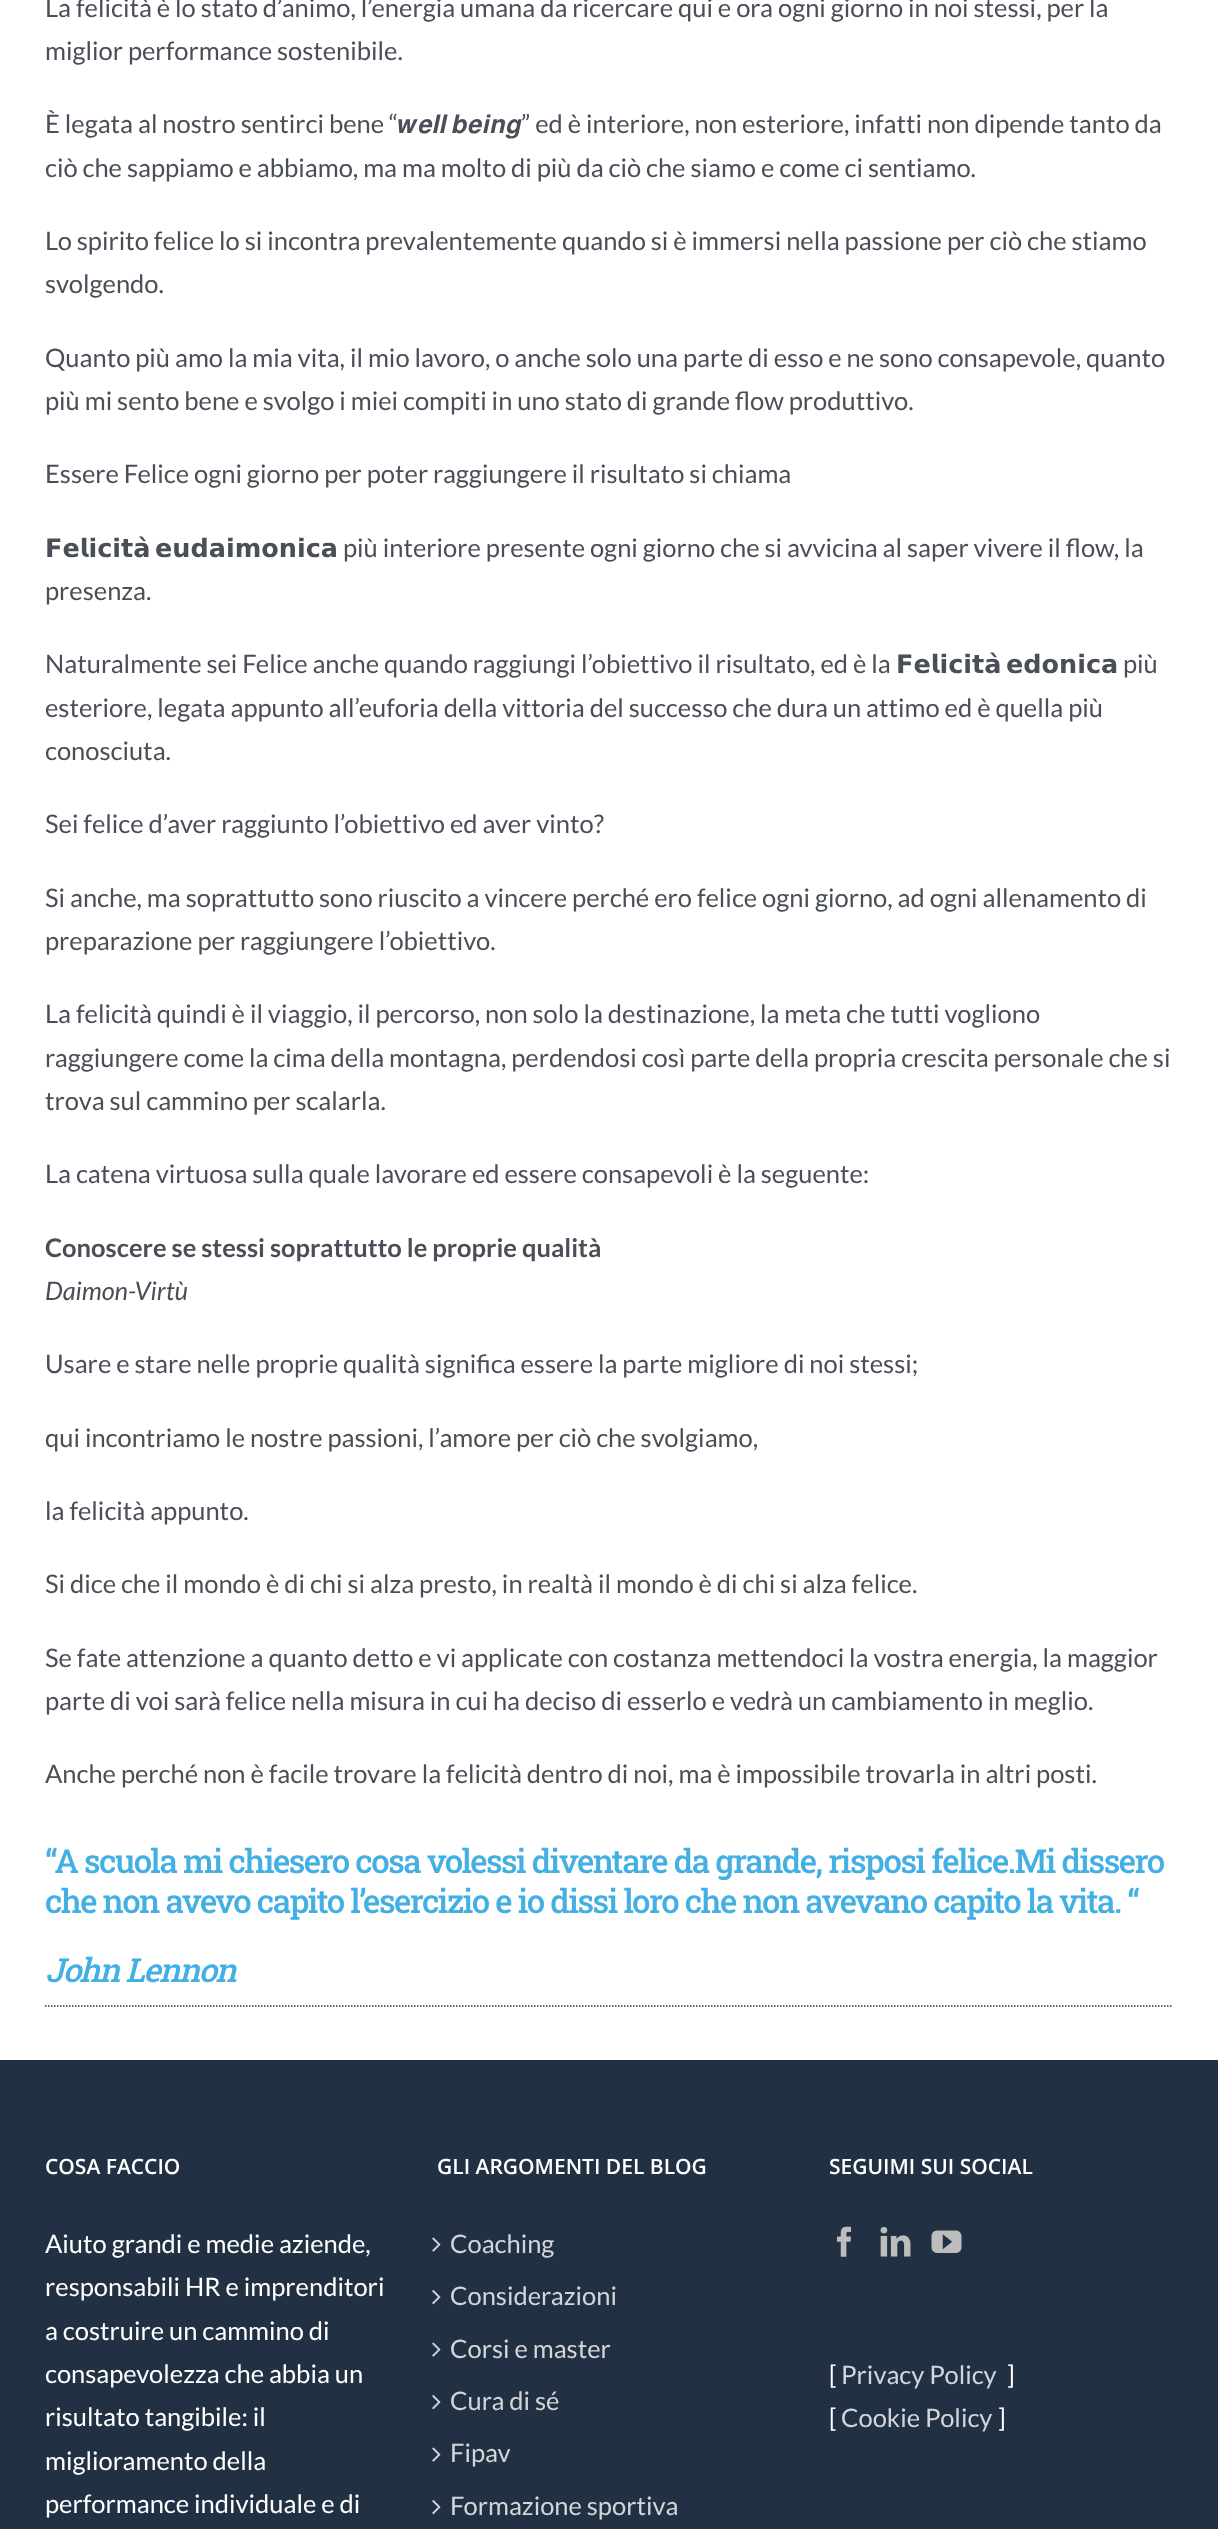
<!DOCTYPE html>
<meta charset="utf-8">
<style>body { margin: 0 } canvas { display: block }</style>
<canvas id="canvas" width="1218" height="2529"></canvas>
<script type="module">
  const canvas = document.getElementById("canvas");
  const ctx = canvas.getContext("2d");
  ctx.miterLimit = 4;
  ctx.fontKerning = "normal";
  async function loadImage(src) {
    const img = new Image();
    img.src = src;
    await img.decode();
    return img;
  }

  ctx.fillStyle = "#ffffff";
  ctx.fillRect(0, 0, 1218, 2529);
  ctx.font = "25.5px Lato";
  ctx.fillStyle = "#4a4e57";
  ctx.fillText("La felicità è lo stato d’animo, l’energia umana da ricercare qui e ora ogni giorno in noi stessi, per la", 45, 17);
  ctx.fillText("miglior performance sostenibile.", 45, 60);
  ctx.fillText("È legata al nostro sentirci bene “", 45, 133);
  ctx.font = "25.5px FreeSans";
  ctx.fillText("𝒘𝒆𝒍𝒍", 398, 133);
  ctx.fillText("𝒃𝒆𝒊𝒏𝒈", 452, 133);
  ctx.font = "25.5px Lato";
  ctx.fillText("” ed è interiore, non esteriore, infatti non dipende tanto da", 521, 133);
  ctx.fillText("ciò che sappiamo e abbiamo, ma ma molto di più da ciò che siamo e come ci sentiamo.", 45, 177);
  ctx.fillText("Lo spirito felice lo si incontra prevalentemente quando si è immersi nella passione per ciò che stiamo", 45, 250);
  ctx.fillText("svolgendo.", 45, 293);
  ctx.fillText("Quanto più amo la mia vita, il mio lavoro, o anche solo una parte di esso e ne sono consapevole, quanto", 45, 367);
  ctx.fillText("più mi sento bene e svolgo i miei compiti in uno stato di grande flow produttivo.", 45, 410);
  ctx.fillText("Essere Felice ogni giorno per poter raggiungere il risultato si chiama", 45, 483);
  ctx.font = "bold 25.5px DejaVu Sans";
  ctx.fillText("𝗙𝗲𝗹𝗶𝗰𝗶𝘁𝗮̀", 45, 557);
  ctx.fillText("𝗲𝘂𝗱𝗮𝗶𝗺𝗼𝗻𝗶𝗰𝗮", 155, 557);
  ctx.font = "25.5px Lato";
  ctx.fillText("più interiore presente ogni giorno che si avvicina al saper vivere il flow, la", 343, 557);
  ctx.fillText("presenza.", 45, 600);
  ctx.fillText("Naturalmente sei Felice anche quando raggiungi l’obiettivo il risultato, ed è la", 45, 673);
  ctx.font = "bold 25.5px DejaVu Sans";
  ctx.fillText("𝗙𝗲𝗹𝗶𝗰𝗶𝘁𝗮̀", 896, 673);
  ctx.fillText("𝗲𝗱𝗼𝗻𝗶𝗰𝗮", 1006, 673);
  ctx.font = "25.5px Lato";
  ctx.fillText("più", 1123, 673);
  ctx.fillText("esteriore, legata appunto all’euforia della vittoria del successo che dura un attimo ed è quella più", 45, 717);
  ctx.fillText("conosciuta.", 45, 760);
  ctx.fillText("Sei felice d’aver raggiunto l’obiettivo ed aver vinto?", 45, 833);
  ctx.fillText("Si anche, ma soprattutto sono riuscito a vincere perché ero felice ogni giorno, ad ogni allenamento di", 45, 907);
  ctx.fillText("preparazione per raggiungere l’obiettivo.", 45, 950);
  ctx.fillText("La felicità quindi è il viaggio, il percorso, non solo la destinazione, la meta che tutti vogliono", 45, 1023);
  ctx.fillText("raggiungere come la cima della montagna, perdendosi così parte della propria crescita personale che si", 45, 1067);
  ctx.fillText("trova sul cammino per scalarla.", 45, 1110);
  ctx.fillText("La catena virtuosa sulla quale lavorare ed essere consapevoli è la seguente:", 45, 1183);
  ctx.font = "bold 25.5px Lato";
  ctx.fillText("Conoscere se stessi soprattutto le proprie qualità", 45, 1257);
  ctx.font = "italic 25.5px Lato";
  ctx.fillText("Daimon-Virtù", 45, 1300);
  ctx.font = "25.5px Lato";
  ctx.fillText("Usare e stare nelle proprie qualità significa essere la parte migliore di noi stessi;", 45, 1373);
  ctx.fillText("qui incontriamo le nostre passioni, l’amore per ciò che svolgiamo,", 45, 1447);
  ctx.fillText("la felicità appunto.", 45, 1520);
  ctx.fillText("Si dice che il mondo è di chi si alza presto, in realtà il mondo è di chi si alza felice.", 45, 1593);
  ctx.fillText("Se fate attenzione a quanto detto e vi applicate con costanza mettendoci la vostra energia, la maggior", 45, 1667);
  ctx.fillText("parte di voi sarà felice nella misura in cui ha deciso di esserlo e vedrà un cambiamento in meglio.", 45, 1710);
  ctx.fillText("Anche perché non è facile trovare la felicità dentro di noi, ma è impossibile trovarla in altri posti.", 45, 1783);
  ctx.beginPath();
  ctx.moveTo(45, 2006);
  ctx.lineTo(1173, 2006);
  ctx.strokeStyle = "#233043";
  ctx.lineWidth = 1.5;
  ctx.setLineDash([1.5, 1.5]);
  ctx.stroke();
  ctx.letterSpacing = "-1.5px";
  ctx.font = "500 33px Roboto Slab";
  ctx.fillStyle = "#43afe3";
  ctx.fillText("“A scuola mi chiesero cosa volessi diventare da grande, risposi felice.Mi dissero", 45, 1873);
  ctx.fillText("che non avevo capito l’esercizio e io dissi loro che non avevano capito la vita. “", 45, 1913);
  ctx.font = "italic 500 33px Roboto Slab";
  ctx.fillText("John Lennon", 45, 1982);
  ctx.fillStyle = "#223043";
  ctx.fillRect(0, 2060, 1218, 469);
  ctx.letterSpacing = "0px";
  ctx.font = "600 21px Open Sans";
  ctx.fillStyle = "#ffffff";
  ctx.fillText("COSA FACCIO", 45, 2174);
  ctx.font = "25.5px Lato";
  ctx.fillText("Aiuto grandi e medie aziende,", 45, 2253);
  ctx.fillText("responsabili HR e imprenditori", 45, 2296);
  ctx.fillText("a costruire un cammino di", 45, 2340);
  ctx.fillText("consapevolezza che abbia un", 45, 2383);
  ctx.fillText("risultato tangibile: il", 45, 2426);
  ctx.fillText("miglioramento della", 45, 2470);
  ctx.fillText("performance individuale e di", 45, 2513);
  ctx.font = "600 21px Open Sans";
  ctx.fillText("GLI ARGOMENTI DEL BLOG", 437, 2174);
  ctx.drawImage(await loadImage("img1.png"), 432, 2237, 9, 15);
  ctx.font = "25.5px Lato";
  ctx.fillStyle = "#d3d6d9";
  ctx.fillText("Coaching", 450, 2253);
  ctx.drawImage(await loadImage("img2.png"), 432, 2290, 9, 15);
  ctx.fillText("Considerazioni", 450, 2305);
  ctx.drawImage(await loadImage("img1.png"), 432, 2342, 9, 15);
  ctx.fillText("Corsi e master", 450, 2358);
  ctx.drawImage(await loadImage("img2.png"), 432, 2395, 9, 15);
  ctx.fillText("Cura di sé", 450, 2410);
  ctx.drawImage(await loadImage("img1.png"), 432, 2447, 9, 15);
  ctx.fillText("Fipav", 450, 2462);
  ctx.drawImage(await loadImage("img2.png"), 432, 2500, 9, 15);
  ctx.fillText("Formazione sportiva", 450, 2515);
  ctx.font = "600 21px Open Sans";
  ctx.fillStyle = "#ffffff";
  ctx.fillText("SEGUIMI SUI SOCIAL", 829, 2174);
  ctx.drawImage(await loadImage("img3.png"), 837, 2226, 14, 31);
  ctx.drawImage(await loadImage("img4.png"), 880, 2227, 31, 30);
  ctx.drawImage(await loadImage("img5.png"), 931, 2230, 31, 23);
  ctx.font = "25.5px Lato";
  ctx.fillText("[", 829, 2384);
  ctx.fillStyle = "#d3d6d9";
  ctx.fillText("Privacy Policy", 841, 2384);
  ctx.fillStyle = "#ffffff";
  ctx.fillText("]", 1007, 2384);
  ctx.fillText("[", 829, 2427);
  ctx.fillStyle = "#d3d6d9";
  ctx.fillText("Cookie Policy", 841, 2427);
  ctx.fillStyle = "#ffffff";
  ctx.fillText("]", 998, 2427);
</script>
